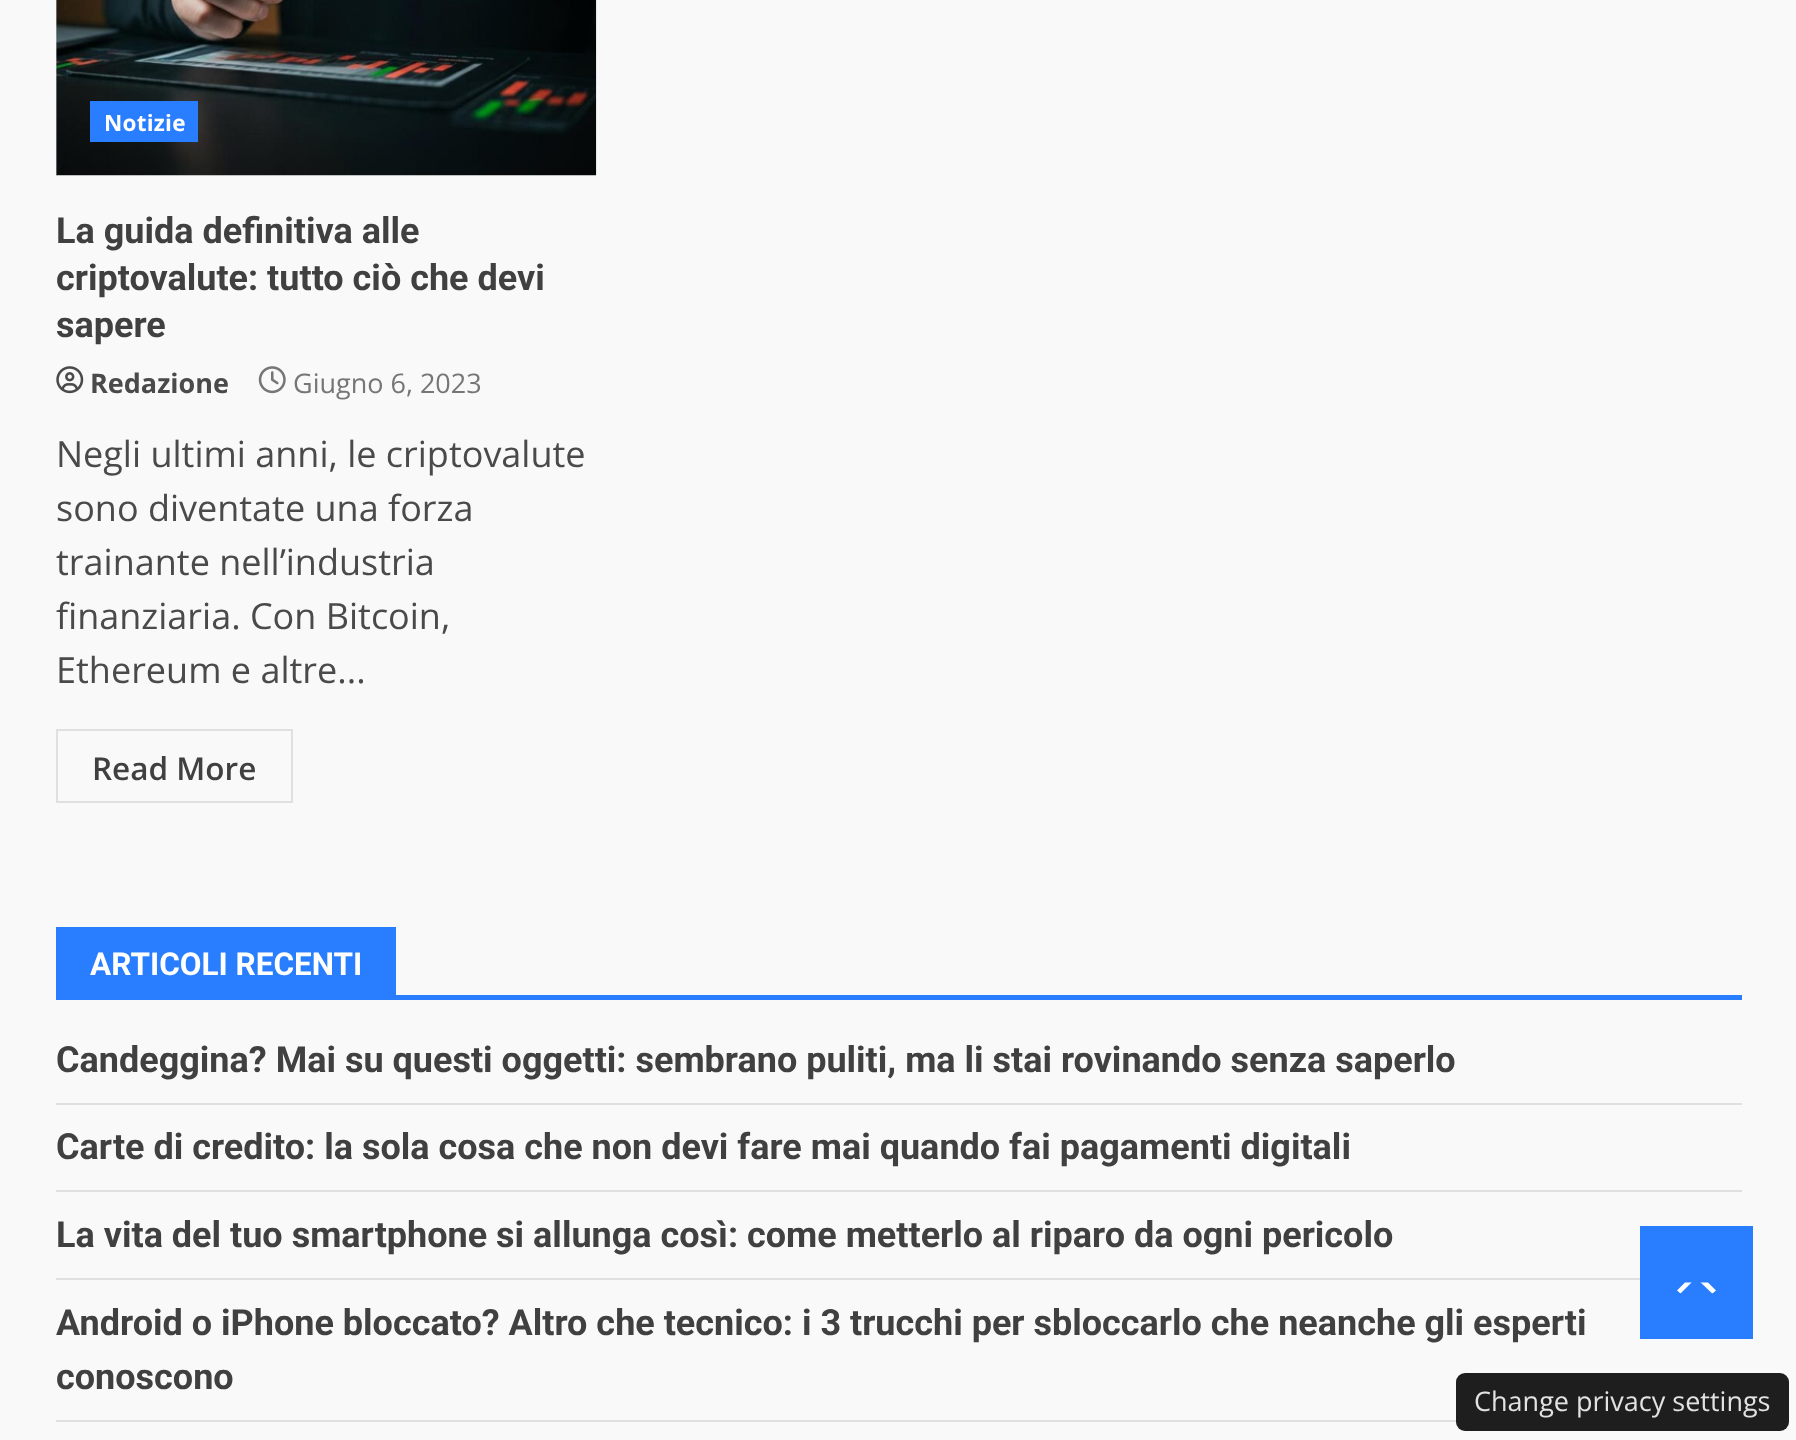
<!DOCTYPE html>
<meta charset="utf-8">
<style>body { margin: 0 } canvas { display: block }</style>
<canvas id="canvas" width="1796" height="1440"></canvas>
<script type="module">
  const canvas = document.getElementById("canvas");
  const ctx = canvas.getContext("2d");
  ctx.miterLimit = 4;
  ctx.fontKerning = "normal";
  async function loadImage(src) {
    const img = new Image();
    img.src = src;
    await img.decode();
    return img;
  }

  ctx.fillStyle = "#f9f9f9";
  ctx.fillRect(0, 0, 1796, 1440);
  ctx.fillStyle = "#cccccc";
  ctx.fillRect(56, 0, 540, 176);
  ctx.drawImage(await loadImage("img1.png"), 56, 0, 541, 176);
  ctx.fillStyle = "#287eff";
  ctx.fillRect(90, 101, 108, 41);
  ctx.letterSpacing = "0.25px";
  ctx.font = "bold 22.5px Open Sans";
  ctx.fillStyle = "#ffffff";
  ctx.fillText("Notizie", 104, 131);
  ctx.letterSpacing = "0px";
  ctx.font = "bold 36px Roboto";
  ctx.fillStyle = "#404040";
  ctx.fillText("La guida definitiva alle", 56, 243);
  ctx.fillText("criptovalute: tutto ciò che devi", 56, 290);
  ctx.fillText("sapere", 56, 337);
  ctx.drawImage(await loadImage("img2.png"), 56, 366, 28, 28);
  ctx.font = "bold 27px Open Sans";
  ctx.fillStyle = "#4a4a4a";
  ctx.fillText("Redazione", 90, 393);
  ctx.drawImage(await loadImage("img3.png"), 258, 366, 28, 28);
  ctx.font = "27px Open Sans";
  ctx.fillStyle = "#767676";
  ctx.fillText("Giugno 6, 2023", 293, 393);
  ctx.font = "36px Open Sans";
  ctx.fillStyle = "#4a4a4a";
  ctx.fillText("Negli ultimi anni, le criptovalute", 56, 467);
  ctx.fillText("sono diventate una forza", 56, 521);
  ctx.fillText("trainante nell’industria", 56, 575);
  ctx.fillText("finanziaria. Con Bitcoin,", 56, 629);
  ctx.fillText("Ethereum e altre...", 56, 683);
  ctx.strokeStyle = "#e0e0e0";
  ctx.lineWidth = 2;
  ctx.strokeRect(57, 730, 235, 72);
  ctx.font = "600 31.5px Open Sans";
  ctx.fillStyle = "#404040";
  ctx.fillText("Read More", 92, 780);
  ctx.fillStyle = "#287eff";
  ctx.fillRect(56, 995, 1686, 5);
  ctx.fillRect(56, 927, 340, 68);
  ctx.font = "bold 31.5px Roboto";
  ctx.fillStyle = "#ffffff";
  ctx.fillText("ARTICOLI RECENTI", 90, 975);
  ctx.fillStyle = "#e0e0e0";
  ctx.fillRect(56, 1103, 1686, 2);
  ctx.font = "bold 36px Roboto";
  ctx.fillStyle = "#404040";
  ctx.fillText("Candeggina? Mai su questi oggetti: sembrano puliti, ma li stai rovinando senza saperlo", 56, 1072);
  ctx.fillStyle = "#e0e0e0";
  ctx.fillRect(56, 1190, 1686, 2);
  ctx.fillStyle = "#404040";
  ctx.fillText("Carte di credito: la sola cosa che non devi fare mai quando fai pagamenti digitali", 56, 1159);
  ctx.fillStyle = "#e0e0e0";
  ctx.fillRect(56, 1278, 1584, 2);
  ctx.fillStyle = "#404040";
  ctx.fillText("La vita del tuo smartphone si allunga così: come metterlo al riparo da ogni pericolo", 56, 1247);
  ctx.fillStyle = "#e0e0e0";
  ctx.fillRect(56, 1420, 1400, 2);
  ctx.fillStyle = "#404040";
  ctx.fillText("Android o iPhone bloccato? Altro che tecnico: i 3 trucchi per sbloccarlo che neanche gli esperti", 56, 1335);
  ctx.fillText("conoscono", 56, 1389);
  ctx.fillStyle = "#287eff";
  ctx.fillRect(1640, 1226, 113, 113);
  ctx.fillStyle = "#ffffff";
  ctx.beginPath();
  ctx.moveTo(1682.5, 1294);
  ctx.bezierCurveTo(1680.5, 1293.5, 1678.5, 1292, 1677, 1290.5);
  ctx.lineTo(1685, 1282.5);
  ctx.lineTo(1708, 1282.5);
  ctx.lineTo(1716, 1290.5);
  ctx.bezierCurveTo(1714.5, 1292, 1712.5, 1293.5, 1710.5, 1294);
  ctx.closePath();
  ctx.fill();
  ctx.fillStyle = "#287eff";
  ctx.beginPath();
  ctx.moveTo(1719, 1300);
  ctx.lineTo(1674, 1300);
  ctx.lineTo(1696, 1278);
  ctx.closePath();
  ctx.fill();
  ctx.fillStyle = "#1e1e1e";
  ctx.beginPath();
  ctx.roundRect(1456, 1373, 333, 58, 9);
  ctx.fill();
  ctx.font = "27px Open Sans";
  ctx.fillStyle = "#e3e1e1";
  ctx.fillText("Change privacy settings", 1474, 1411);
</script>
